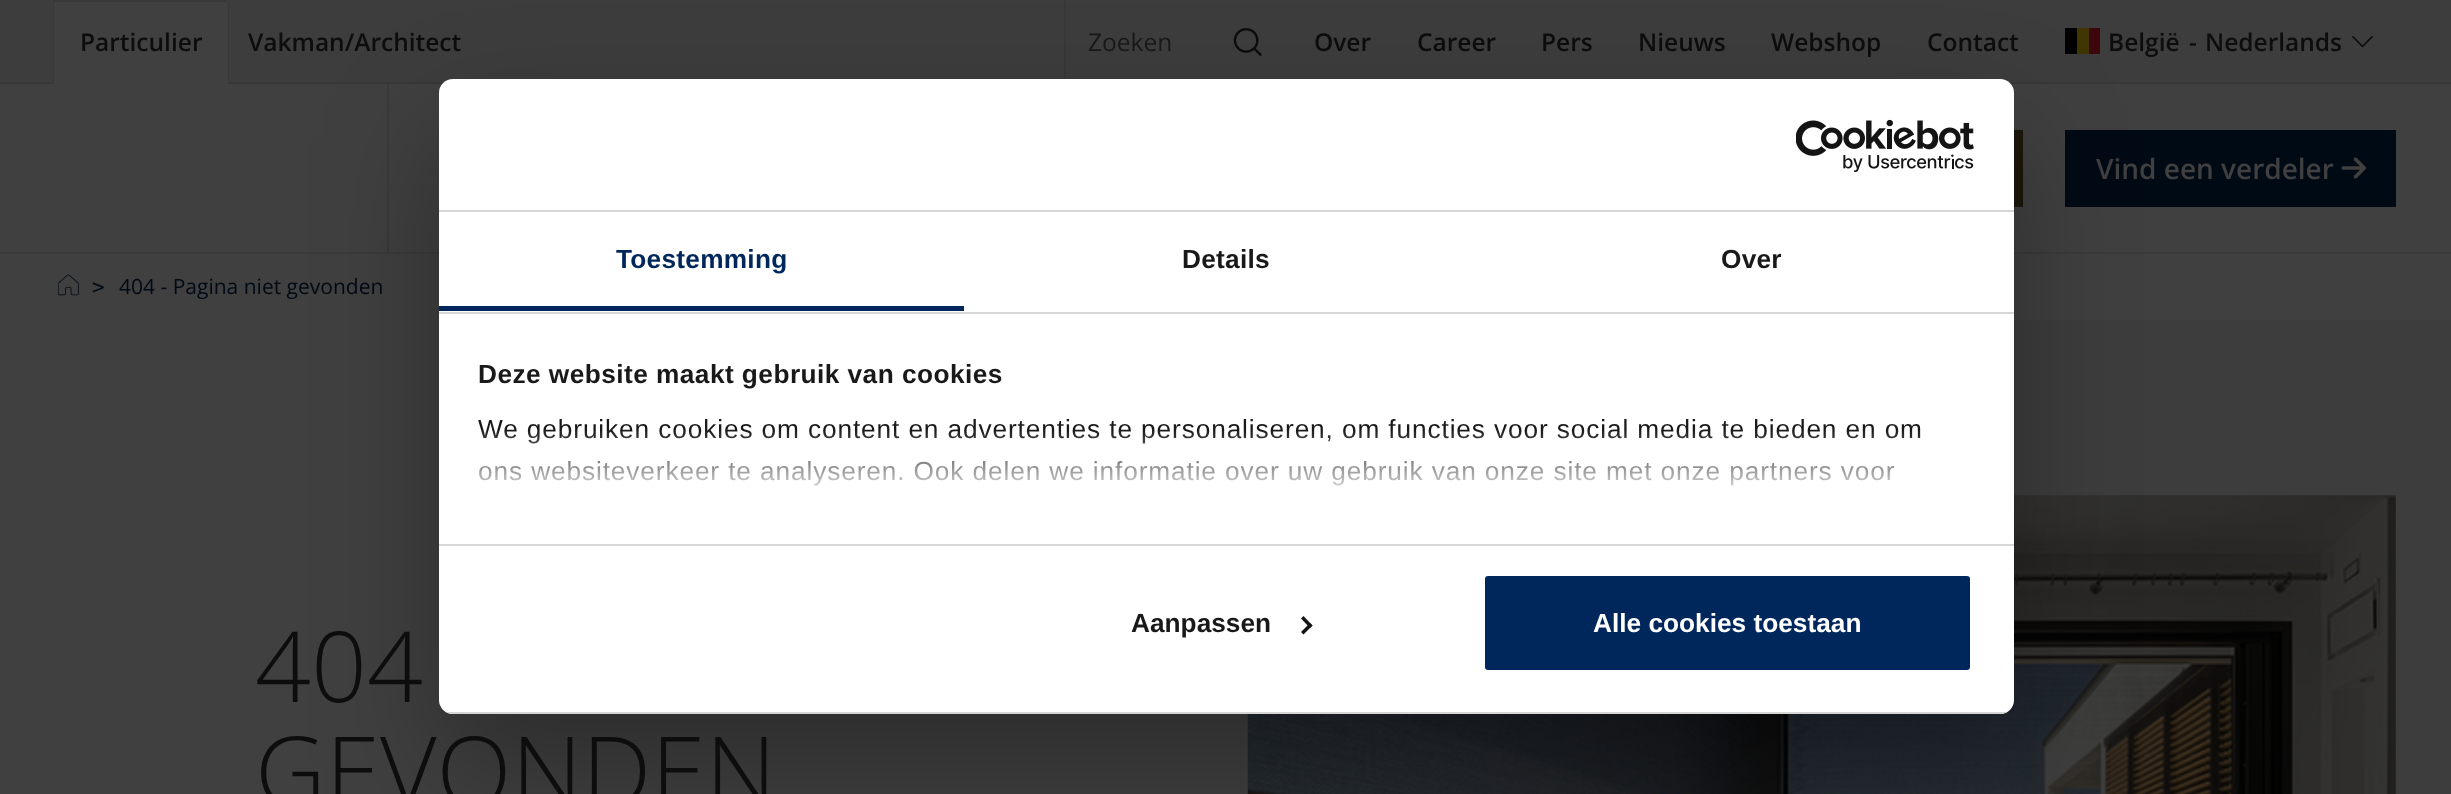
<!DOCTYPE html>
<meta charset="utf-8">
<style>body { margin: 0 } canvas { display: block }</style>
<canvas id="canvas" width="2451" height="794"></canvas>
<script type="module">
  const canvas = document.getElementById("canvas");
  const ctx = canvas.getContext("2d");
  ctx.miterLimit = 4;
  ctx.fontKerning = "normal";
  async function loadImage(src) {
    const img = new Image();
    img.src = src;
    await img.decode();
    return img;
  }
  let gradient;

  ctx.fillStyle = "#404040";
  ctx.fillRect(0, 0, 2451, 794);
  ctx.fillStyle = "#3d3d3e";
  ctx.fillRect(0, 0, 2451, 82);
  ctx.fillStyle = "#37383a";
  ctx.fillRect(0, 82, 2451, 2);
  ctx.beginPath();
  ctx.moveTo(60, 2);
  ctx.lineTo(60, 4);
  ctx.lineTo(224, 4);
  ctx.lineTo(224, 79);
  ctx.lineTo(60, 79);
  ctx.lineTo(60, 81);
  ctx.lineTo(229, 81);
  ctx.lineTo(229, 2);
  ctx.closePath();
  ctx.fill();
  ctx.beginPath();
  ctx.moveTo(53, 0);
  ctx.lineTo(53, 82);
  ctx.lineTo(226, 82);
  ctx.lineTo(226, 0);
  ctx.closePath();
  ctx.moveTo(58, 4);
  ctx.lineTo(58, 79);
  ctx.lineTo(224, 79);
  ctx.lineTo(224, 4);
  ctx.closePath();
  ctx.fill("evenodd");
  ctx.fillStyle = "#404040";
  ctx.beginPath();
  ctx.moveTo(54, 2);
  ctx.lineTo(54, 84);
  ctx.lineTo(228, 84);
  ctx.lineTo(228, 2);
  ctx.closePath();
  ctx.moveTo(58, 4);
  ctx.lineTo(58, 79);
  ctx.lineTo(224, 79);
  ctx.lineTo(224, 4);
  ctx.closePath();
  ctx.fill("evenodd");
  ctx.fillRect(58, 4, 166, 75);
  ctx.font = "600 24.5px Open Sans";
  ctx.fillStyle = "#0d0d0d";
  ctx.fillText("Particulier", 80, 51);
  ctx.fillText("Vakman/Architect", 248, 51);
  ctx.fillStyle = "#37383a";
  ctx.fillRect(1064, 0, 2, 82);
  ctx.font = "24.5px Open Sans";
  ctx.fillStyle = "#191919";
  ctx.fillText("Zoeken", 1088, 51);
  ctx.drawImage(await loadImage("img1.png"), 1233, 28, 29, 28);
  ctx.font = "600 24.5px Open Sans";
  ctx.fillStyle = "#0d0d0d";
  ctx.fillText("Over", 1314, 51);
  ctx.fillText("Career", 1417, 51);
  ctx.fillText("Pers", 1541, 51);
  ctx.fillText("Nieuws", 1638, 51);
  ctx.fillText("Webshop", 1771, 51);
  ctx.fillText("Contact", 1927, 51);
  ctx.fillStyle = "#000000";
  ctx.fillRect(2065, 28, 12, 26);
  ctx.fillStyle = "#403603";
  ctx.fillRect(2077, 28, 12, 26);
  ctx.fillStyle = "#3d060c";
  ctx.fillRect(2089, 28, 11, 26);
  ctx.fillStyle = "#0d0d0d";
  ctx.fillText("België", 2108, 51);
  ctx.fillText("-", 2189, 51);
  ctx.fillText("Nederlands", 2205, 51);
  ctx.drawImage(await loadImage("img2.png"), 2352, 36, 21, 12);
  ctx.fillStyle = "#393a3b";
  ctx.fillRect(0, 252, 2451, 2);
  ctx.fillRect(387, 84, 2, 168);
  ctx.fillStyle = "#1d170a";
  ctx.fillRect(2014, 130, 9, 77);
  ctx.fillStyle = "#000a15";
  ctx.fillRect(2065, 130, 331, 77);
  ctx.font = "600 28px Open Sans";
  ctx.fillStyle = "#404040";
  ctx.fillText("Vind een verdeler", 2096, 179);
  ctx.drawImage(await loadImage("img3.png"), 2341, 157, 25, 22);
  ctx.drawImage(await loadImage("img4.png"), 58, 274, 21, 22);
  ctx.font = "21px DejaVu Sans Mono";
  ctx.fillStyle = "#000a15";
  ctx.fillText(">", 92, 294);
  ctx.font = "21px Open Sans";
  ctx.fillText("404 - Pagina niet gevonden", 119, 294);
  ctx.fillStyle = "#3d3d3e";
  ctx.fillRect(2014, 320, 437, 474);
  ctx.drawImage(await loadImage("img6.png"), 1247, 495, 1149, 299);
  ctx.fillStyle = "rgba(0, 0, 0, 0.3)";
  ctx.filter = "blur(59.5px)";
  ctx.beginPath();
  ctx.roundRect(439, 135, 1575, 635, 14);
  ctx.fill();
  ctx.filter = "none";
  ctx.fillStyle = "#ffffff";
  ctx.beginPath();
  ctx.roundRect(439, 79, 1575, 635, 14);
  ctx.fill();
  ctx.fillStyle = "#d6d6d6";
  ctx.fillRect(439, 210, 1575, 2);
  ctx.drawImage(await loadImage("img5.png"), 1796, 119, 178, 53);
  ctx.fillRect(439, 312, 1575, 2);
  ctx.fillStyle = "#00275b";
  ctx.fillRect(439, 306, 525, 5);
  ctx.letterSpacing = "0.25px";
  ctx.font = "bold 26.25px Liberation Sans";
  ctx.fillText("Toestemming", 616, 268);
  ctx.fillStyle = "#191919";
  ctx.fillText("Details", 1182, 268);
  ctx.fillText("Over", 1721, 268);
  ctx.fillStyle = "#d6d6d6";
  ctx.fillRect(439, 544, 1575, 2);
  ctx.letterSpacing = "0.45px";
  ctx.fillStyle = "#191919";
  ctx.fillText("Deze website maakt gebruik van cookies", 478, 383);
  ctx.letterSpacing = "0.88px";
  ctx.font = "26.25px Liberation Sans";
  ctx.fillText("We gebruiken cookies om content en advertenties te personaliseren, om functies voor social media te bieden en om", 478, 438);
  ctx.fillText("ons websiteverkeer te analyseren. Ook delen we informatie over uw gebruik van onze site met onze partners voor", 478, 480);
  gradient = ctx.createLinearGradient(1208, 545, 1208, 429);
  gradient.addColorStop(0, "#ffffff");
  gradient.addColorStop(0.5, "rgba(255, 255, 255, 0.8)");
  gradient.addColorStop(1, "rgba(255, 255, 255, 0)");
  ctx.fillStyle = gradient;
  ctx.fillRect(478, 431, 1442, 55);
  ctx.save();
  ctx.beginPath();
  ctx.roundRect(439, 79, 1575, 635, 14);
  ctx.clip();
  ctx.fillStyle = "#d6d6d6";
  ctx.fillRect(439, 712, 1575, 2);
  ctx.restore();
  ctx.letterSpacing = "0px";
  ctx.font = "bold 26.25px Liberation Sans";
  ctx.fillStyle = "#191919";
  ctx.fillText("Aanpassen", 1131, 632);
  ctx.fillStyle = "#141414";
  ctx.beginPath();
  ctx.moveTo(1303.5, 616);
  ctx.lineTo(1312.5, 625.5);
  ctx.lineTo(1310, 628);
  ctx.lineTo(1301, 618.5);
  ctx.closePath();
  ctx.fill();
  ctx.beginPath();
  ctx.moveTo(1310, 623);
  ctx.lineTo(1312.5, 625.5);
  ctx.lineTo(1303.5, 634.5);
  ctx.lineTo(1301, 632);
  ctx.closePath();
  ctx.fill();
  ctx.fillStyle = "#00275b";
  ctx.beginPath();
  ctx.roundRect(1483, 574, 489, 98, 5);
  ctx.fill();
  ctx.strokeStyle = "#ffffff";
  ctx.lineWidth = 4;
  ctx.stroke();
  ctx.fillStyle = "#ffffff";
  ctx.fillText("Alle cookies toestaan", 1593, 632);
  ctx.font = "300 98px Open Sans";
  ctx.fillStyle = "#0d0d0d";
  ctx.fillText("404", 255, 702);
  ctx.fillText("GEVONDEN", 255, 807);
</script>
